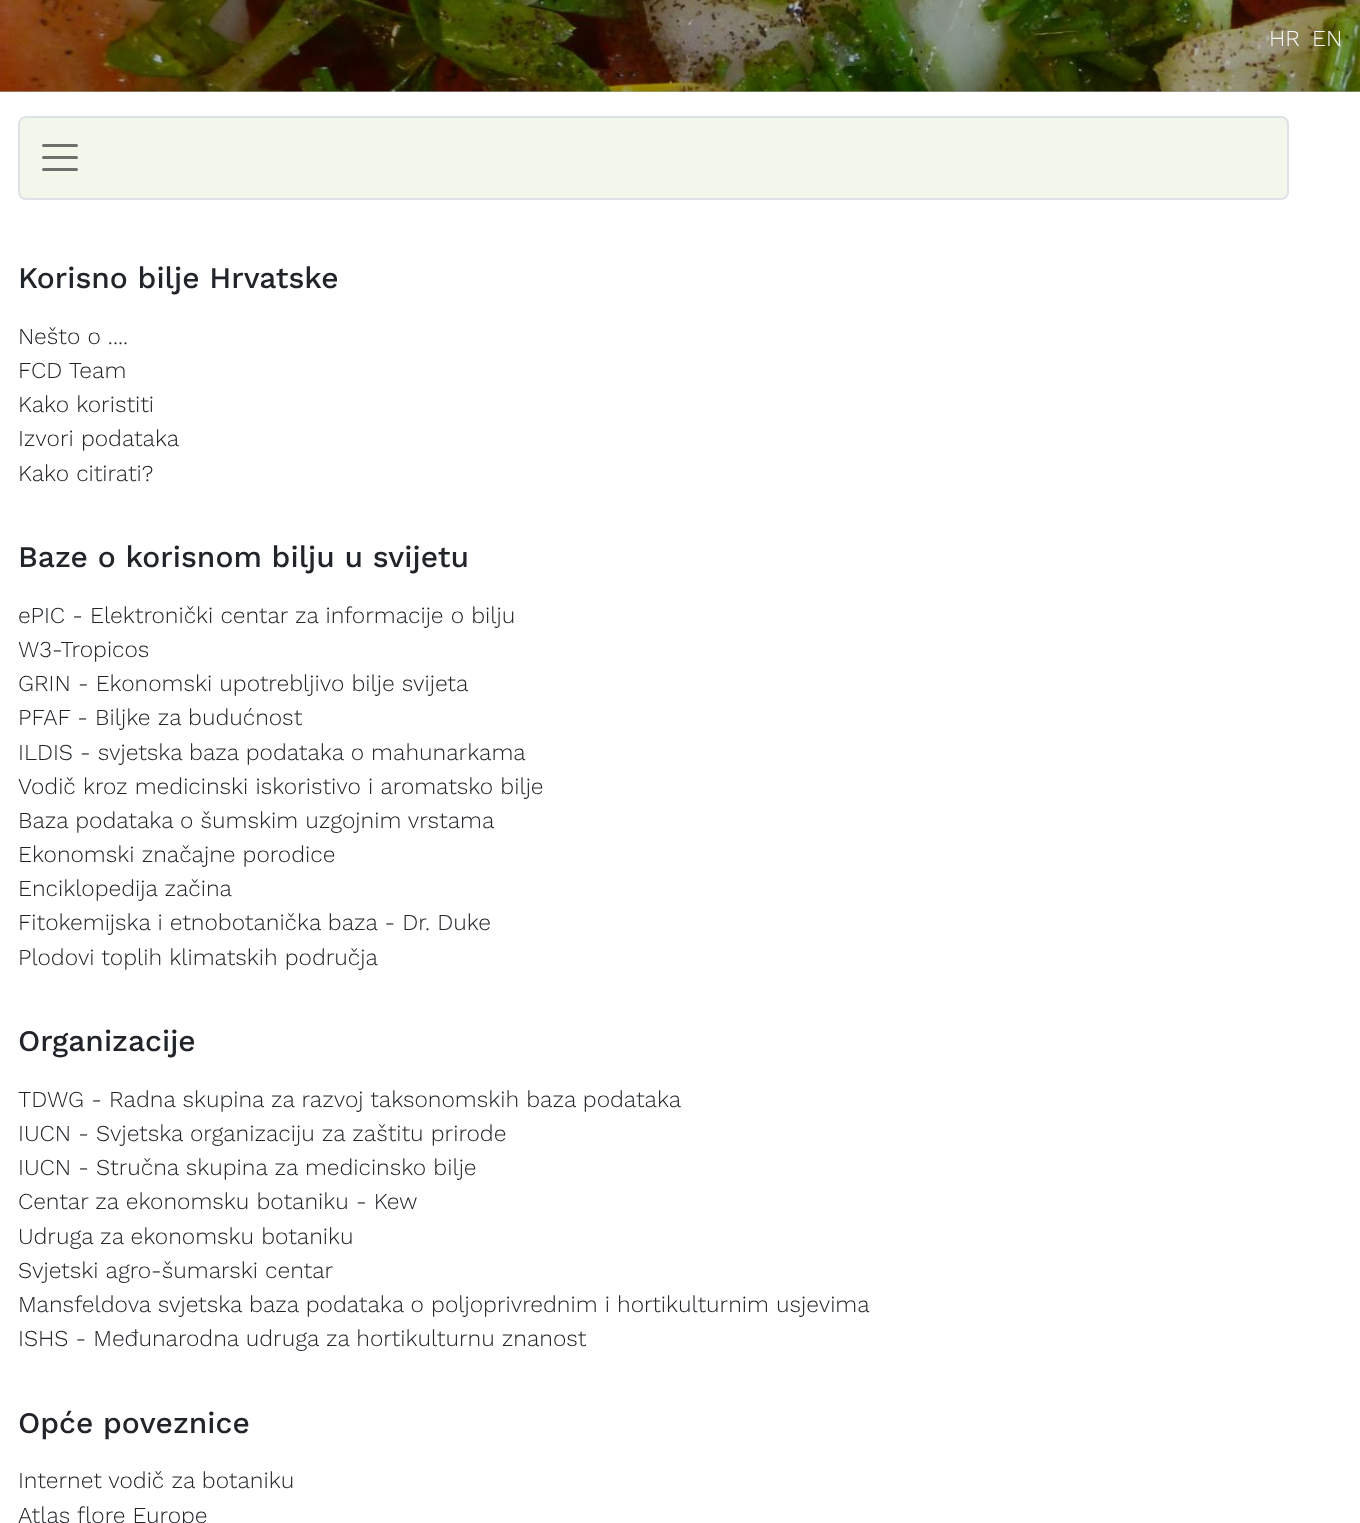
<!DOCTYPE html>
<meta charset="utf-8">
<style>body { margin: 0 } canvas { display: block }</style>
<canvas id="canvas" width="1360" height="1523"></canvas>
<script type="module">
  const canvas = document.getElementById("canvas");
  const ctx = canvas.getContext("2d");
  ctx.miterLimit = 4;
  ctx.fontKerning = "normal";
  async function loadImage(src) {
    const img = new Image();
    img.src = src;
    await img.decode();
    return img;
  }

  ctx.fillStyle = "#ffffff";
  ctx.fillRect(0, 0, 1360, 1523);
  ctx.fillStyle = "#b3b3b3";
  ctx.fillRect(0, 91, 1360, 1);
  ctx.drawImage(await loadImage("img1.png"), 0, 0, 1360, 92);
  ctx.font = "300 22.8px Work Sans";
  ctx.fillStyle = "#f8f9fa";
  ctx.fillText("HR", 1269, 46);
  ctx.fillText("EN", 1312, 46);
  ctx.fillStyle = "#f1f7eb";
  ctx.beginPath();
  ctx.roundRect(19, 117, 1269, 82, 7);
  ctx.fill();
  ctx.strokeStyle = "#dee2e6";
  ctx.lineWidth = 2;
  ctx.stroke();
  ctx.beginPath();
  ctx.moveTo(43.5, 145.5);
  ctx.lineTo(76.5, 145.5);
  ctx.moveTo(43.5, 157.5);
  ctx.lineTo(76.5, 157.5);
  ctx.moveTo(43.5, 169.5);
  ctx.lineTo(76.5, 169.5);
  ctx.strokeStyle = "#6c6f6a";
  ctx.lineWidth = 3;
  ctx.lineCap = "round";
  ctx.stroke();
  ctx.font = "500 30px Work Sans";
  ctx.fillStyle = "#212529";
  ctx.fillText("Korisno bilje Hrvatske", 18, 288);
  ctx.font = "300 22.8px Work Sans";
  ctx.fillText("Nešto o ....", 18, 344);
  ctx.fillText("FCD Team", 18, 378);
  ctx.fillText("Kako koristiti", 18, 412);
  ctx.fillText("Izvori podataka", 18, 446);
  ctx.fillText("Kako citirati?", 18, 481);
  ctx.font = "500 30px Work Sans";
  ctx.fillText("Baze o korisnom bilju u svijetu", 18, 567);
  ctx.font = "300 22.8px Work Sans";
  ctx.fillText("ePIC - Elektronički centar za informacije o bilju", 18, 623);
  ctx.fillText("W3-Tropicos", 18, 657);
  ctx.fillText("GRIN - Ekonomski upotrebljivo bilje svijeta", 18, 691);
  ctx.fillText("PFAF - Biljke za budućnost", 18, 725);
  ctx.fillText("ILDIS - svjetska baza podataka o mahunarkama", 18, 760);
  ctx.fillText("Vodič kroz medicinski iskoristivo i aromatsko bilje", 18, 794);
  ctx.fillText("Baza podataka o šumskim uzgojnim vrstama", 18, 828);
  ctx.fillText("Ekonomski značajne porodice", 18, 862);
  ctx.fillText("Enciklopedija začina", 18, 896);
  ctx.fillText("Fitokemijska i etnobotanička baza - Dr. Duke", 18, 930);
  ctx.fillText("Plodovi toplih klimatskih područja", 18, 965);
  ctx.font = "500 30px Work Sans";
  ctx.fillText("Organizacije", 18, 1051);
  ctx.font = "300 22.8px Work Sans";
  ctx.fillText("TDWG - Radna skupina za razvoj taksonomskih baza podataka", 18, 1107);
  ctx.fillText("IUCN - Svjetska organizaciju za zaštitu prirode", 18, 1141);
  ctx.fillText("IUCN - Stručna skupina za medicinsko bilje", 18, 1175);
  ctx.fillText("Centar za ekonomsku botaniku - Kew", 18, 1209);
  ctx.fillText("Udruga za ekonomsku botaniku", 18, 1244);
  ctx.fillText("Svjetski agro-šumarski centar", 18, 1278);
  ctx.fillText("Mansfeldova svjetska baza podataka o poljoprivrednim i hortikulturnim usjevima", 18, 1312);
  ctx.fillText("ISHS - Međunarodna udruga za hortikulturnu znanost", 18, 1346);
  ctx.font = "500 30px Work Sans";
  ctx.fillText("Opće poveznice", 18, 1433);
  ctx.font = "300 22.8px Work Sans";
  ctx.fillText("Internet vodič za botaniku", 18, 1488);
  ctx.fillText("Atlas flore Europe", 18, 1523);
</script>
